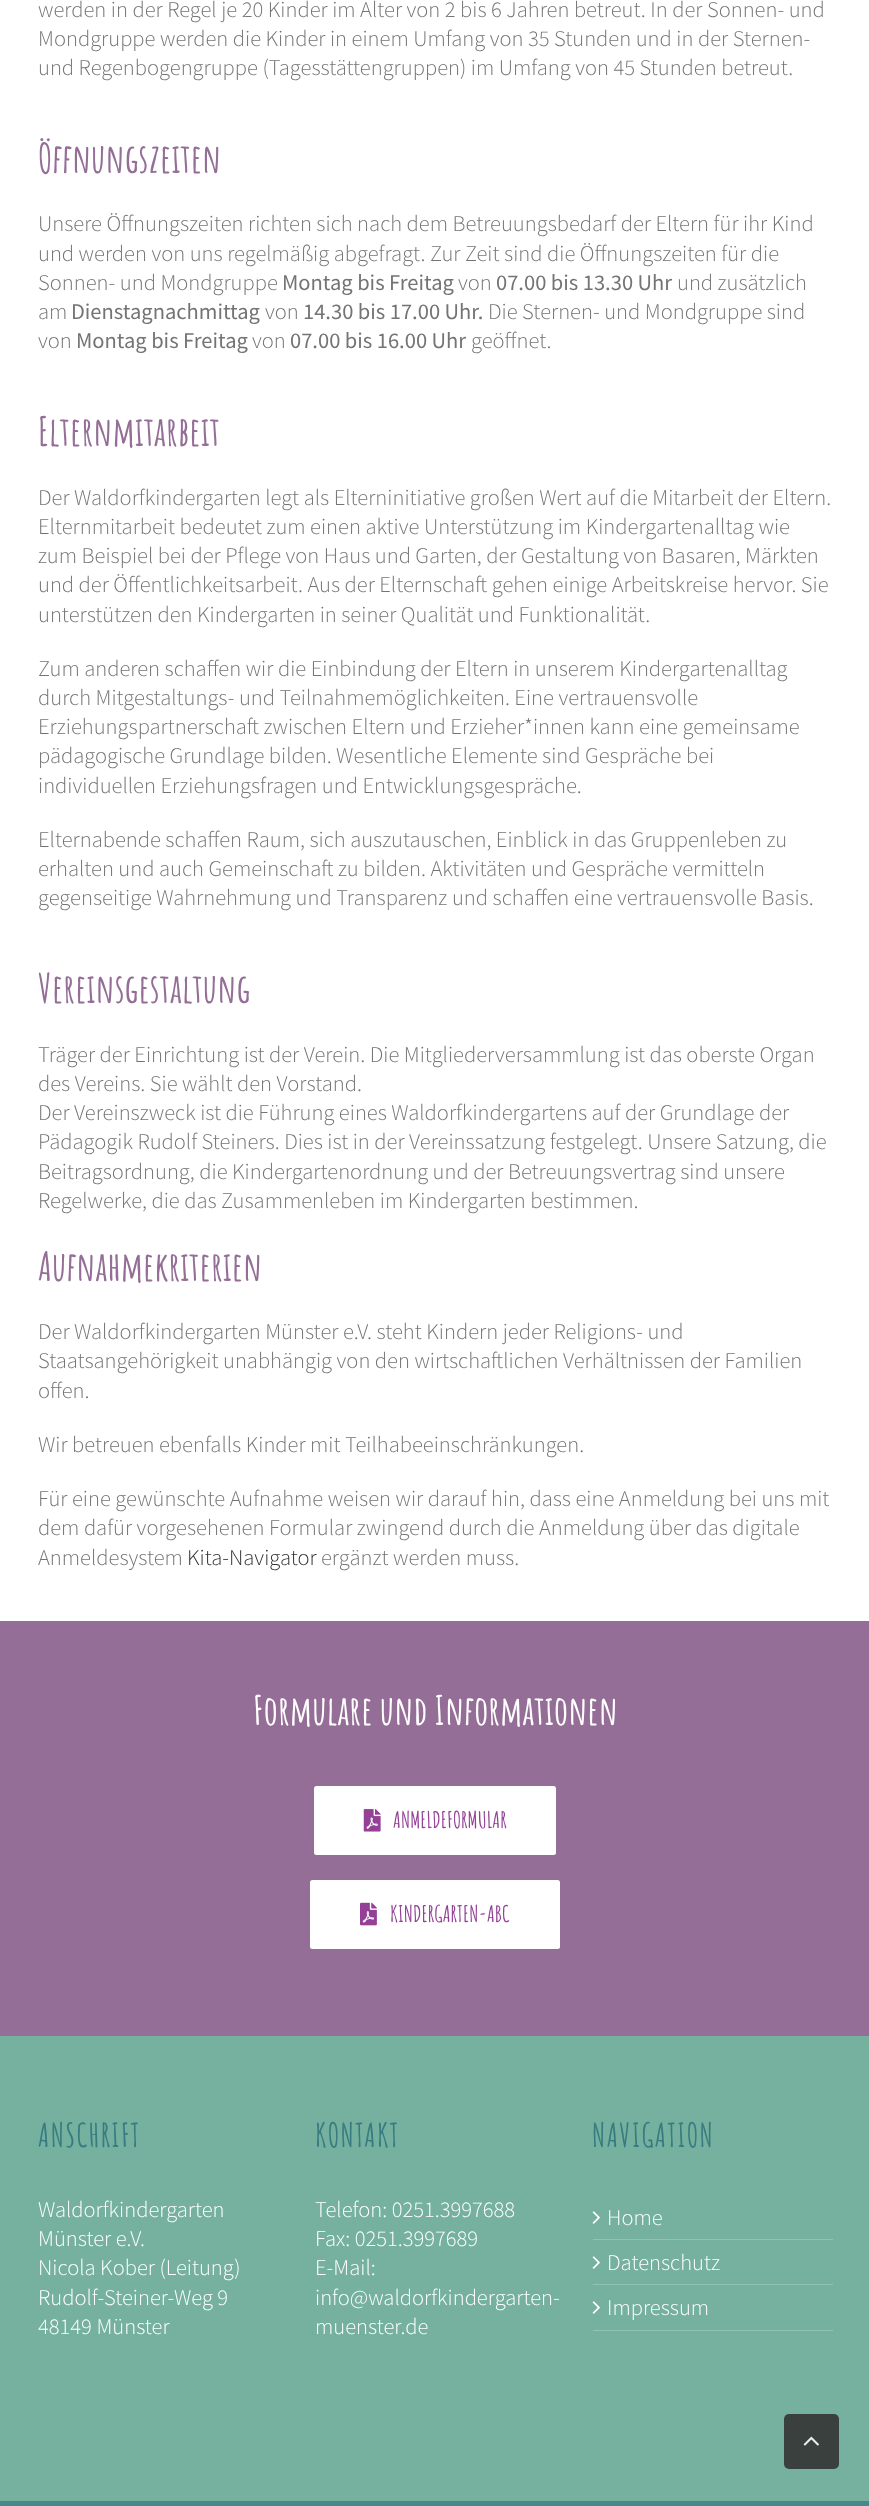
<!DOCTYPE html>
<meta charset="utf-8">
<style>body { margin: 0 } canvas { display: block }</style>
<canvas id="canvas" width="869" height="2506"></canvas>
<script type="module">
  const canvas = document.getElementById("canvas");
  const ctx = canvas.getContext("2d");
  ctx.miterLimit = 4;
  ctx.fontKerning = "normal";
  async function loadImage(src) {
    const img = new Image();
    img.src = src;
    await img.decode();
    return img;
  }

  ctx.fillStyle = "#ffffff";
  ctx.fillRect(0, 0, 869, 2506);
  ctx.font = "300 22.5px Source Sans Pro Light";
  ctx.fillStyle = "#747474";
  ctx.fillText("werden in der Regel je 20 Kinder im Alter von 2 bis 6 Jahren betreut. In der Sonnen- und", 38, 17);
  ctx.fillText("Mondgruppe werden die Kinder in einem Umfang von 35 Stunden und in der Sternen-", 38, 46);
  ctx.fillText("und Regenbogengruppe (Tagesstättengruppen) im Umfang von 45 Stunden betreut.", 38, 75);
  ctx.font = "bold 40px Amatic SC";
  ctx.fillStyle = "#946e96";
  ctx.fillText("Öffnungszeiten", 38, 173);
  ctx.font = "300 22.5px Source Sans Pro Light";
  ctx.fillStyle = "#747474";
  ctx.fillText("Unsere Öffnungszeiten richten sich nach dem Betreuungsbedarf der Eltern für ihr Kind", 38, 231);
  ctx.fillText("und werden von uns regelmäßig abgefragt. Zur Zeit sind die Öffnungszeiten für die", 38, 261);
  ctx.fillText("Sonnen- und Mondgruppe", 38, 290);
  ctx.font = "22.5px Source Sans Pro";
  ctx.fillText("Montag bis Freitag", 282, 290);
  ctx.font = "300 22.5px Source Sans Pro Light";
  ctx.fillText("von", 458, 290);
  ctx.font = "22.5px Source Sans Pro";
  ctx.fillText("07.00 bis 13.30 Uhr", 496, 290);
  ctx.font = "300 22.5px Source Sans Pro Light";
  ctx.fillText("und zusätzlich", 677, 290);
  ctx.fillText("am", 38, 319);
  ctx.font = "22.5px Source Sans Pro";
  ctx.fillText("Dienstagnachmittag", 71, 319);
  ctx.font = "300 22.5px Source Sans Pro Light";
  ctx.fillText("von", 265, 319);
  ctx.font = "22.5px Source Sans Pro";
  ctx.fillText("14.30 bis 17.00 Uhr.", 303, 319);
  ctx.font = "300 22.5px Source Sans Pro Light";
  ctx.fillText("Die Sternen- und Mondgruppe sind", 488, 319);
  ctx.fillText("von", 38, 348);
  ctx.font = "22.5px Source Sans Pro";
  ctx.fillText("Montag bis Freitag", 76, 348);
  ctx.font = "300 22.5px Source Sans Pro Light";
  ctx.fillText("von", 252, 348);
  ctx.font = "22.5px Source Sans Pro";
  ctx.fillText("07.00 bis 16.00 Uhr", 290, 348);
  ctx.font = "300 22.5px Source Sans Pro Light";
  ctx.fillText("geöffnet.", 471, 348);
  ctx.font = "bold 40px Amatic SC";
  ctx.fillStyle = "#946e96";
  ctx.fillText("Elternmitarbeit", 38, 446);
  ctx.font = "300 22.5px Source Sans Pro Light";
  ctx.fillStyle = "#747474";
  ctx.fillText("Der Waldorfkindergarten legt als Elterninitiative großen Wert auf die Mitarbeit der Eltern.", 38, 505);
  ctx.fillText("Elternmitarbeit bedeutet zum einen aktive Unterstützung im Kindergartenalltag wie", 38, 534);
  ctx.fillText("zum Beispiel bei der Pflege von Haus und Garten, der Gestaltung von Basaren, Märkten", 38, 563);
  ctx.fillText("und der Öffentlichkeitsarbeit. Aus der Elternschaft gehen einige Arbeitskreise hervor. Sie", 38, 592);
  ctx.fillText("unterstützen den Kindergarten in seiner Qualität und Funktionalität.", 38, 622);
  ctx.fillText("Zum anderen schaffen wir die Einbindung der Eltern in unserem Kindergartenalltag", 38, 676);
  ctx.fillText("durch Mitgestaltungs- und Teilnahmemöglichkeiten. Eine vertrauensvolle", 38, 705);
  ctx.fillText("Erziehungspartnerschaft zwischen Eltern und Erzieher*innen kann eine gemeinsame", 38, 734);
  ctx.fillText("pädagogische Grundlage bilden. Wesentliche Elemente sind Gespräche bei", 38, 763);
  ctx.fillText("individuellen Erziehungsfragen und Entwicklungsgespräche.", 38, 793);
  ctx.fillText("Elternabende schaffen Raum, sich auszutauschen, Einblick in das Gruppenleben zu", 38, 847);
  ctx.fillText("erhalten und auch Gemeinschaft zu bilden. Aktivitäten und Gespräche vermitteln", 38, 876);
  ctx.fillText("gegenseitige Wahrnehmung und Transparenz und schaffen eine vertrauensvolle Basis.", 38, 905);
  ctx.font = "bold 40px Amatic SC";
  ctx.fillStyle = "#946e96";
  ctx.fillText("Vereinsgestaltung", 38, 1003);
  ctx.font = "300 22.5px Source Sans Pro Light";
  ctx.fillStyle = "#747474";
  ctx.fillText("Träger der Einrichtung ist der Verein. Die Mitgliederversammlung ist das oberste Organ", 38, 1062);
  ctx.fillText("des Vereins. Sie wählt den Vorstand.", 38, 1091);
  ctx.fillText("Der Vereinszweck ist die Führung eines Waldorfkindergartens auf der Grundlage der", 38, 1120);
  ctx.fillText("Pädagogik Rudolf Steiners. Dies ist in der Vereinssatzung festgelegt. Unsere Satzung, die", 38, 1149);
  ctx.fillText("Beitragsordnung, die Kindergartenordnung und der Betreuungsvertrag sind unsere", 38, 1179);
  ctx.fillText("Regelwerke, die das Zusammenleben im Kindergarten bestimmen.", 38, 1208);
  ctx.font = "bold 40px Amatic SC";
  ctx.fillStyle = "#946e96";
  ctx.fillText("Aufnahmekriterien", 38, 1281);
  ctx.font = "300 22.5px Source Sans Pro Light";
  ctx.fillStyle = "#747474";
  ctx.fillText("Der Waldorfkindergarten Münster e.V. steht Kindern jeder Religions- und", 38, 1339);
  ctx.fillText("Staatsangehörigkeit unabhängig von den wirtschaftlichen Verhältnissen der Familien", 38, 1368);
  ctx.fillText("offen.", 38, 1398);
  ctx.fillText("Wir betreuen ebenfalls Kinder mit Teilhabeeinschränkungen.", 38, 1452);
  ctx.fillText("Für eine gewünschte Aufnahme weisen wir darauf hin, dass eine Anmeldung bei uns mit", 38, 1506);
  ctx.fillText("dem dafür vorgesehenen Formular zwingend durch die Anmeldung über das digitale", 38, 1535);
  ctx.fillText("Anmeldesystem", 38, 1565);
  ctx.fillStyle = "#333333";
  ctx.fillText("Kita-Navigator", 187, 1565);
  ctx.fillStyle = "#747474";
  ctx.fillText("ergänzt werden muss.", 321, 1565);
  ctx.fillStyle = "#946e96";
  ctx.fillRect(0, 1621, 869, 415);
  ctx.font = "bold 40px Amatic SC";
  ctx.fillStyle = "#ffffff";
  ctx.fillText("Formulare und Informationen", 253, 1725);
  ctx.beginPath();
  ctx.roundRect(314, 1786, 242, 69, 2.5);
  ctx.fill();
  ctx.drawImage(await loadImage("img1.png"), 363, 1809, 18, 23);
  ctx.font = "bold 22.5px Amatic SC";
  ctx.fillStyle = "#934096";
  ctx.fillText("ANMELDEFORMULAR", 393, 1828);
  ctx.fillStyle = "#ffffff";
  ctx.beginPath();
  ctx.roundRect(310, 1880, 250, 69, 2.5);
  ctx.fill();
  ctx.drawImage(await loadImage("img2.png"), 360, 1902, 17, 24);
  ctx.fillStyle = "#934096";
  ctx.fillText("KINDERGARTEN-ABC", 390, 1922);
  ctx.fillStyle = "#76b19f";
  ctx.fillRect(0, 2036, 869, 465);
  ctx.letterSpacing = "1.25px";
  ctx.font = "bold 32.5px Amatic SC";
  ctx.fillStyle = "#377c81";
  ctx.fillText("ANSCHRIFT", 38, 2147);
  ctx.letterSpacing = "0px";
  ctx.font = "300 22.5px Source Sans Pro Light";
  ctx.fillStyle = "#ffffff";
  ctx.fillText("Waldorfkindergarten", 38, 2217);
  ctx.fillText("Münster e.V.", 38, 2246);
  ctx.fillText("Nicola Kober (Leitung)", 38, 2275);
  ctx.fillText("Rudolf-Steiner-Weg 9", 38, 2305);
  ctx.fillText("48149 Münster", 38, 2334);
  ctx.letterSpacing = "1.25px";
  ctx.font = "bold 32.5px Amatic SC";
  ctx.fillStyle = "#377c81";
  ctx.fillText("KONTAKT", 315, 2147);
  ctx.letterSpacing = "0px";
  ctx.font = "300 22.5px Source Sans Pro Light";
  ctx.fillStyle = "#ffffff";
  ctx.fillText("Telefon: 0251.3997688", 315, 2217);
  ctx.fillText("Fax: 0251.3997689", 315, 2246);
  ctx.fillText("E-Mail:", 315, 2275);
  ctx.fillText("info@waldorfkindergarten-", 315, 2305);
  ctx.fillText("muenster.de", 315, 2334);
  ctx.letterSpacing = "1.25px";
  ctx.font = "bold 32.5px Amatic SC";
  ctx.fillStyle = "#377c81";
  ctx.fillText("NAVIGATION", 592, 2147);
  ctx.fillStyle = "#91c1b2";
  ctx.fillRect(593, 2239, 240, 1);
  ctx.drawImage(await loadImage("img3.png"), 592, 2211, 8, 13);
  ctx.letterSpacing = "0px";
  ctx.font = "300 22.5px Source Sans Pro Light";
  ctx.fillStyle = "#ffffff";
  ctx.fillText("Home", 607, 2225);
  ctx.fillStyle = "#91c1b2";
  ctx.fillRect(593, 2284, 240, 1);
  ctx.drawImage(await loadImage("img3.png"), 592, 2256, 8, 13);
  ctx.fillStyle = "#ffffff";
  ctx.fillText("Datenschutz", 607, 2270);
  ctx.fillStyle = "#91c1b2";
  ctx.fillRect(593, 2330, 240, 1);
  ctx.drawImage(await loadImage("img3.png"), 592, 2301, 8, 13);
  ctx.fillStyle = "#ffffff";
  ctx.fillText("Impressum", 607, 2315);
  ctx.fillStyle = "#48888c";
  ctx.fillRect(0, 2501, 869, 5);
  ctx.fillStyle = "#3a403e";
  ctx.beginPath();
  ctx.roundRect(784, 2414, 55, 55, 5);
  ctx.fill();
  ctx.drawImage(await loadImage("img4.png"), 803, 2436, 16, 10);
</script>
